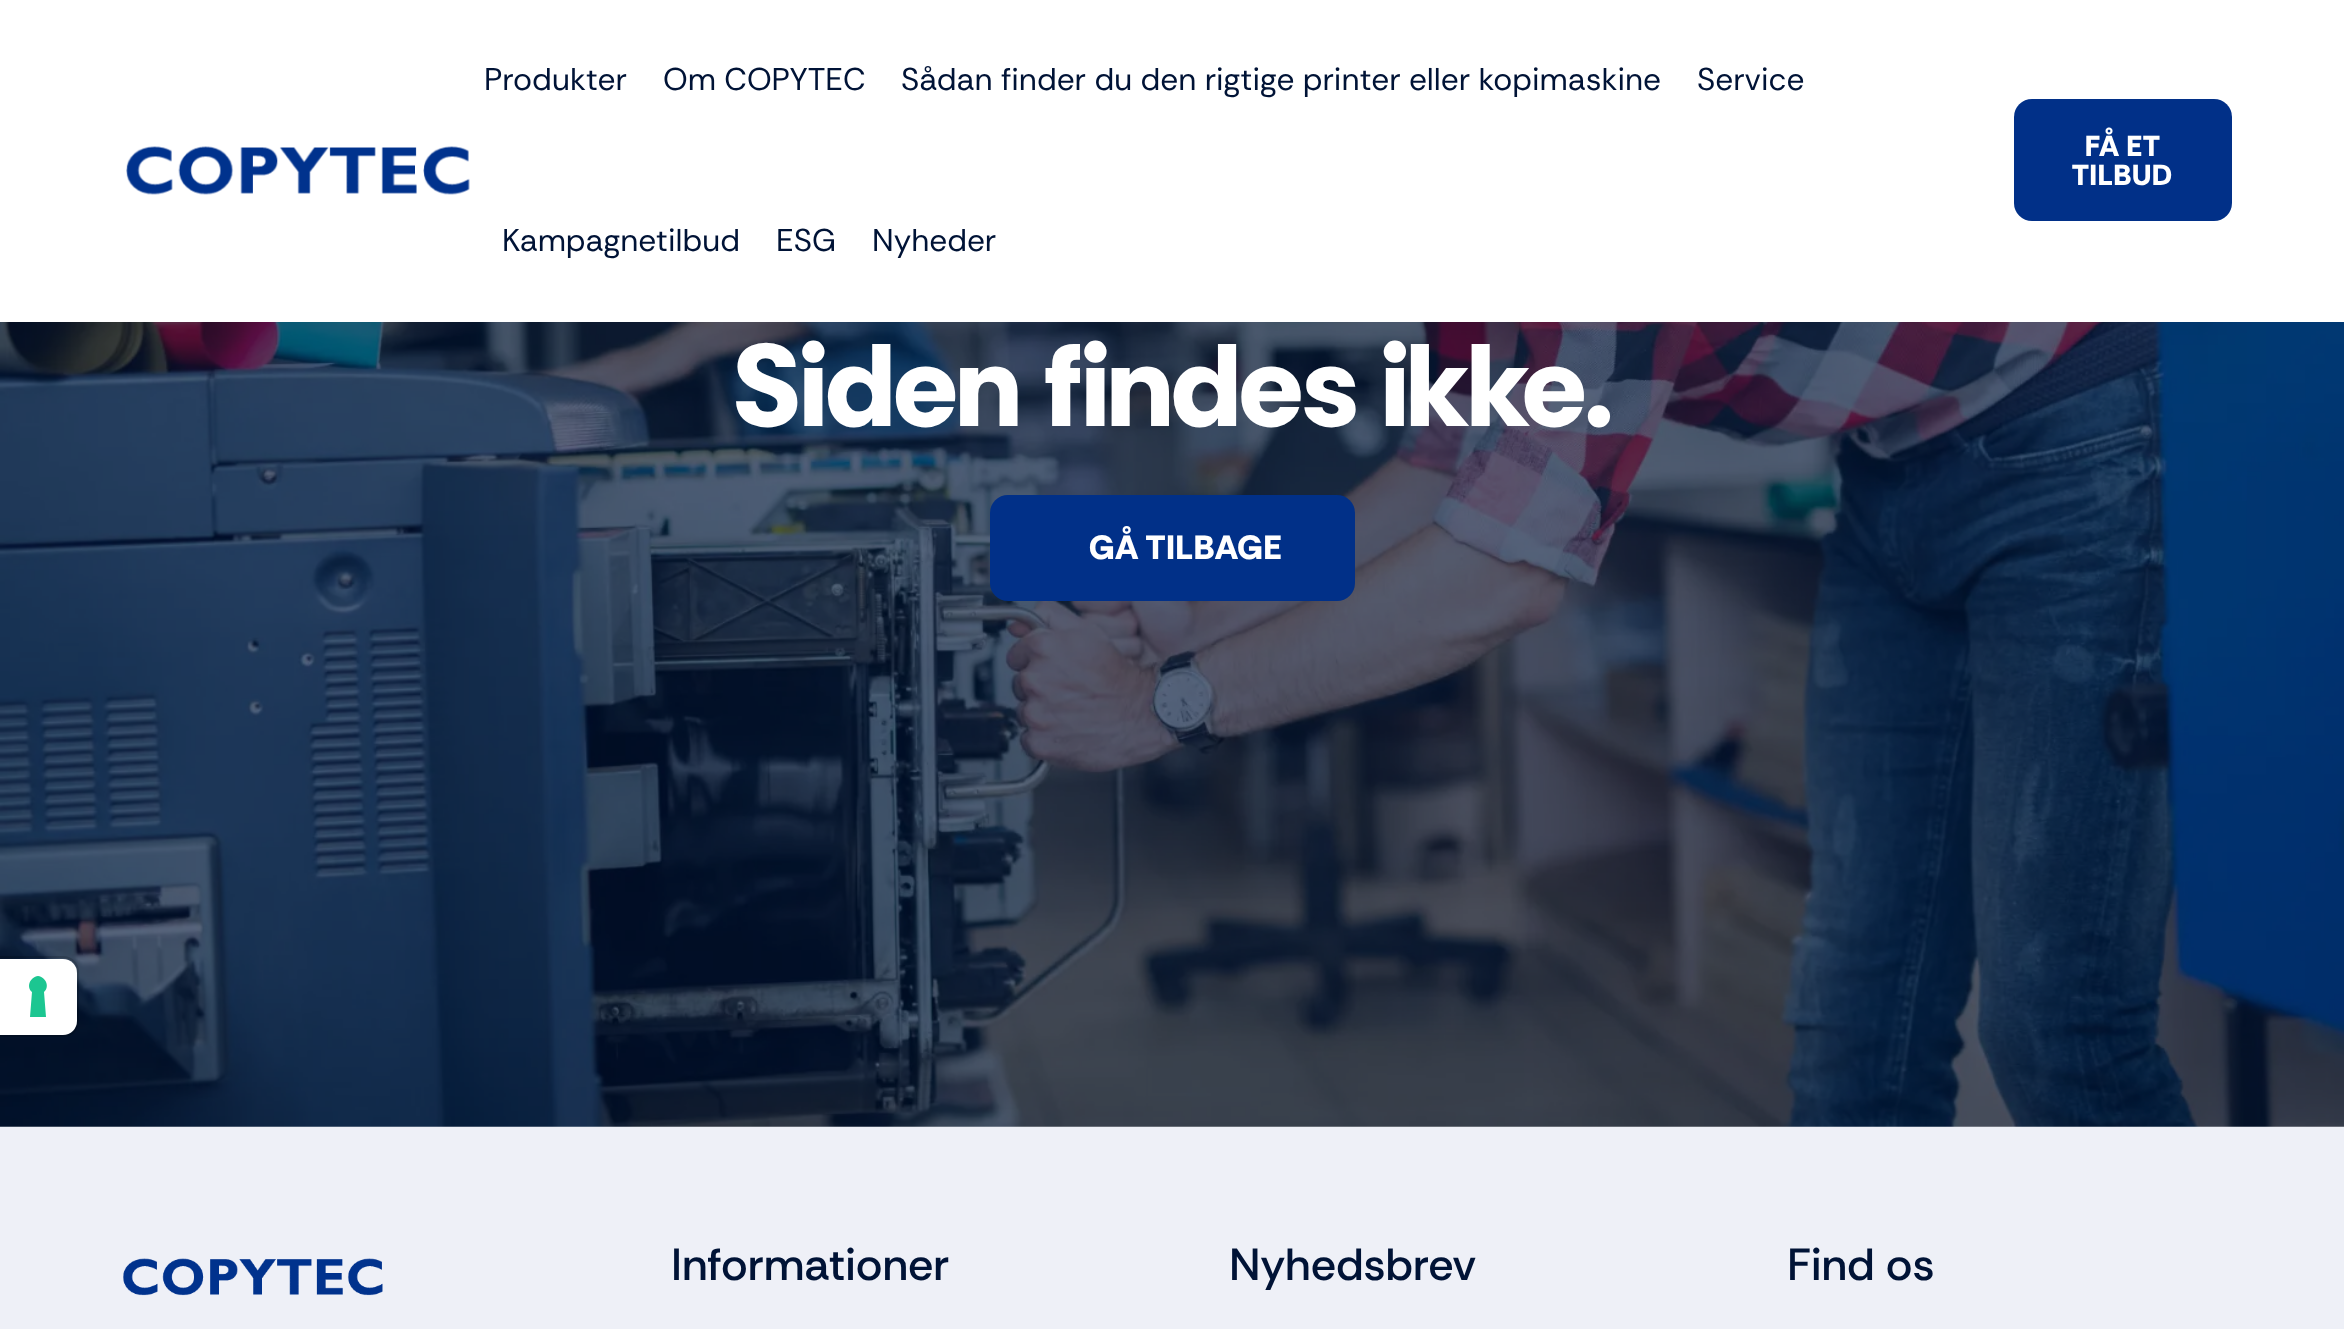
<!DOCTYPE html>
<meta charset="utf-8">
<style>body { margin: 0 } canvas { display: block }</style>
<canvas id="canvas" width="2344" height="1329"></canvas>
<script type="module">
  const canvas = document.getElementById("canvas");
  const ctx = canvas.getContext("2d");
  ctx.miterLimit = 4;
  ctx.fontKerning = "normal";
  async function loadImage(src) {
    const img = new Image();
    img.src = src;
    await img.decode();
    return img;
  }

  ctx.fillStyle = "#ffffff";
  ctx.fillRect(0, 0, 2344, 1329);
  ctx.drawImage(await loadImage("img1.png"), 126, 146, 344, 49);
  ctx.font = "31.5px Rethink Sans";
  ctx.fillStyle = "#001336";
  ctx.fillText("Produkter", 484, 90);
  ctx.fillText("Om COPYTEC", 663, 90);
  ctx.fillText("Sådan finder du den rigtige printer eller kopimaskine", 901, 90);
  ctx.fillText("Service", 1697, 90);
  ctx.fillText("Kampagnetilbud", 502, 251);
  ctx.fillText("ESG", 776, 251);
  ctx.fillText("Nyheder", 872, 251);
  ctx.fillStyle = "#013088";
  ctx.beginPath();
  ctx.roundRect(2014, 99, 218, 122, 18);
  ctx.fill();
  ctx.letterSpacing = "0.75px";
  ctx.font = "800 29px Rethink Sans";
  ctx.fillStyle = "#ffffff";
  ctx.fillText("FÅ ET", 2085, 156);
  ctx.fillText("TILBUD", 2072, 185);
  ctx.drawImage(await loadImage("img2.png"), 0, 322, 2344, 805);
  ctx.letterSpacing = "0px";
  ctx.font = "800 117px Rethink Sans";
  ctx.fillText("Siden findes ikke.", 733, 426);
  ctx.fillStyle = "#013088";
  ctx.beginPath();
  ctx.roundRect(990, 495, 365, 106, 18);
  ctx.fill();
  ctx.letterSpacing = "0.75px";
  ctx.font = "800 33.75px Rethink Sans";
  ctx.fillStyle = "#ffffff";
  ctx.fillText("GÅ TILBAGE", 1089, 559);
  ctx.beginPath();
  ctx.moveTo(-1, 957);
  ctx.lineTo(63, 957);
  ctx.bezierCurveTo(71.5, 957, 78, 963.5, 78, 972);
  ctx.lineTo(78, 1021);
  ctx.bezierCurveTo(78, 1029.5, 71.5, 1036, 63, 1036);
  ctx.lineTo(-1, 1036);
  ctx.closePath();
  ctx.strokeStyle = "rgba(0, 0, 0, 0.15)";
  ctx.lineWidth = 2;
  ctx.stroke();
  ctx.beginPath();
  ctx.roundRect(0, 959, 77, 76, [0, 14, 14, 0]);
  ctx.fill();
  ctx.fillStyle = "#1cc691";
  ctx.beginPath();
  ctx.moveTo(38, 976);
  ctx.bezierCurveTo(46, 977, 50, 987, 44, 992);
  ctx.lineTo(46, 1017);
  ctx.lineTo(30, 1017);
  ctx.lineTo(32, 992);
  ctx.bezierCurveTo(26, 987, 30, 977, 38, 976);
  ctx.closePath();
  ctx.fill("evenodd");
  ctx.fillStyle = "#eef0f7";
  ctx.fillRect(0, 1127, 2344, 202);
  ctx.drawImage(await loadImage("img3.png"), 123, 1258, 260, 38);
  ctx.letterSpacing = "0px";
  ctx.font = "500 45px Rethink Sans";
  ctx.fillStyle = "#001336";
  ctx.fillText("Informationer", 671, 1280);
  ctx.fillText("Nyhedsbrev", 1229, 1280);
  ctx.fillText("Find os", 1787, 1280);
</script>
